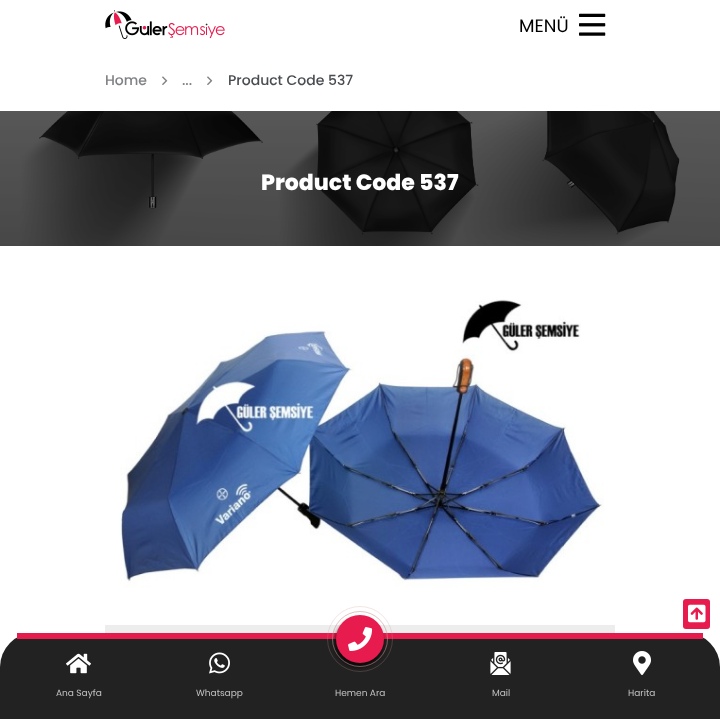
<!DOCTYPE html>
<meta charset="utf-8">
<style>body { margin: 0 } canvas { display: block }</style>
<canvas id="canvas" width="720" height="719"></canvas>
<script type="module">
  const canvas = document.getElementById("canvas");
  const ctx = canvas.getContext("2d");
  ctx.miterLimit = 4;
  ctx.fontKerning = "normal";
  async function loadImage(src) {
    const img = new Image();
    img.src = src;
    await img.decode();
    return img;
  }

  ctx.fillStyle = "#ffffff";
  ctx.fillRect(0, 0, 720, 719);
  ctx.drawImage(await loadImage("img1.png"), 105, 10, 120, 29);
  ctx.font = "18px Poppins";
  ctx.fillStyle = "#000000";
  ctx.fillText("MENÜ", 519, 32);
  ctx.drawImage(await loadImage("img2.png"), 579, 13, 27, 23);
  ctx.drawImage(await loadImage("img3.png"), 0, 111, 720, 135);
  ctx.font = "500 14px Poppins";
  ctx.fillStyle = "#7f8185";
  ctx.fillText("Home", 105, 85);
  ctx.drawImage(await loadImage("img4.png"), 162, 76, 6, 9);
  ctx.fillText("...", 182, 85);
  ctx.drawImage(await loadImage("img4.png"), 207, 76, 6, 9);
  ctx.fillStyle = "#494c51";
  ctx.fillText("Product Code 537", 228, 85);
  ctx.font = "800 22px Poppins";
  ctx.fillStyle = "#ffffff";
  ctx.fillText("Product Code 537", 261, 190);
  ctx.drawImage(await loadImage("img5.png"), 120, 299, 484, 289);
  ctx.fillStyle = "#ededed";
  ctx.fillRect(105, 625, 510, 8);
  ctx.fillStyle = "#e81b4e";
  ctx.beginPath();
  ctx.roundRect(683, 599, 27, 30, 3);
  ctx.fill();
  ctx.drawImage(await loadImage("img6.png"), 688, 604, 18, 19);
  ctx.fillStyle = "#222222";
  ctx.beginPath();
  ctx.roundRect(0, 633, 720, 86, [34, 34, 0, 0]);
  ctx.fill();
  ctx.fillStyle = "#e61b4d";
  ctx.fillRect(17, 633, 686, 6);
  ctx.drawImage(await loadImage("img7.png"), 66, 653, 25, 21);
  ctx.font = "9px Poppins";
  ctx.fillStyle = "#c2c2c2";
  ctx.fillText("Ana Sayfa", 56, 696);
  ctx.drawImage(await loadImage("img8.png"), 209, 652, 21, 22);
  ctx.fillText("Whatsapp", 196, 696);
  ctx.fillStyle = "rgba(0, 0, 0, 0.77)";
  ctx.filter = "blur(2px)";
  ctx.beginPath();
  ctx.roundRect(335, 619, 48, 48, 24);
  ctx.fill();
  ctx.filter = "none";
  ctx.fillStyle = "#e81b4e";
  ctx.beginPath();
  ctx.arc(360, 639, 24, 0, Math.PI * 2);
  ctx.fill();
  ctx.drawImage(await loadImage("img9.png"), 348, 627, 25, 24);
  ctx.beginPath();
  ctx.arc(360, 639, 32.5, 0, Math.PI * 2);
  ctx.strokeStyle = "rgba(203, 147, 147, 0.25)";
  ctx.stroke();
  ctx.beginPath();
  ctx.arc(360, 639, 27.5, 0, Math.PI * 2);
  ctx.strokeStyle = "rgba(203, 147, 147, 0.56)";
  ctx.stroke();
  ctx.fillStyle = "#c2c2c2";
  ctx.fillText("Hemen Ara", 335, 696);
  ctx.drawImage(await loadImage("img10.png"), 490, 652, 21, 23);
  ctx.fillText("Mail", 492, 696);
  ctx.drawImage(await loadImage("img11.png"), 633, 651, 18, 24);
  ctx.fillText("Harita", 628, 696);
</script>
